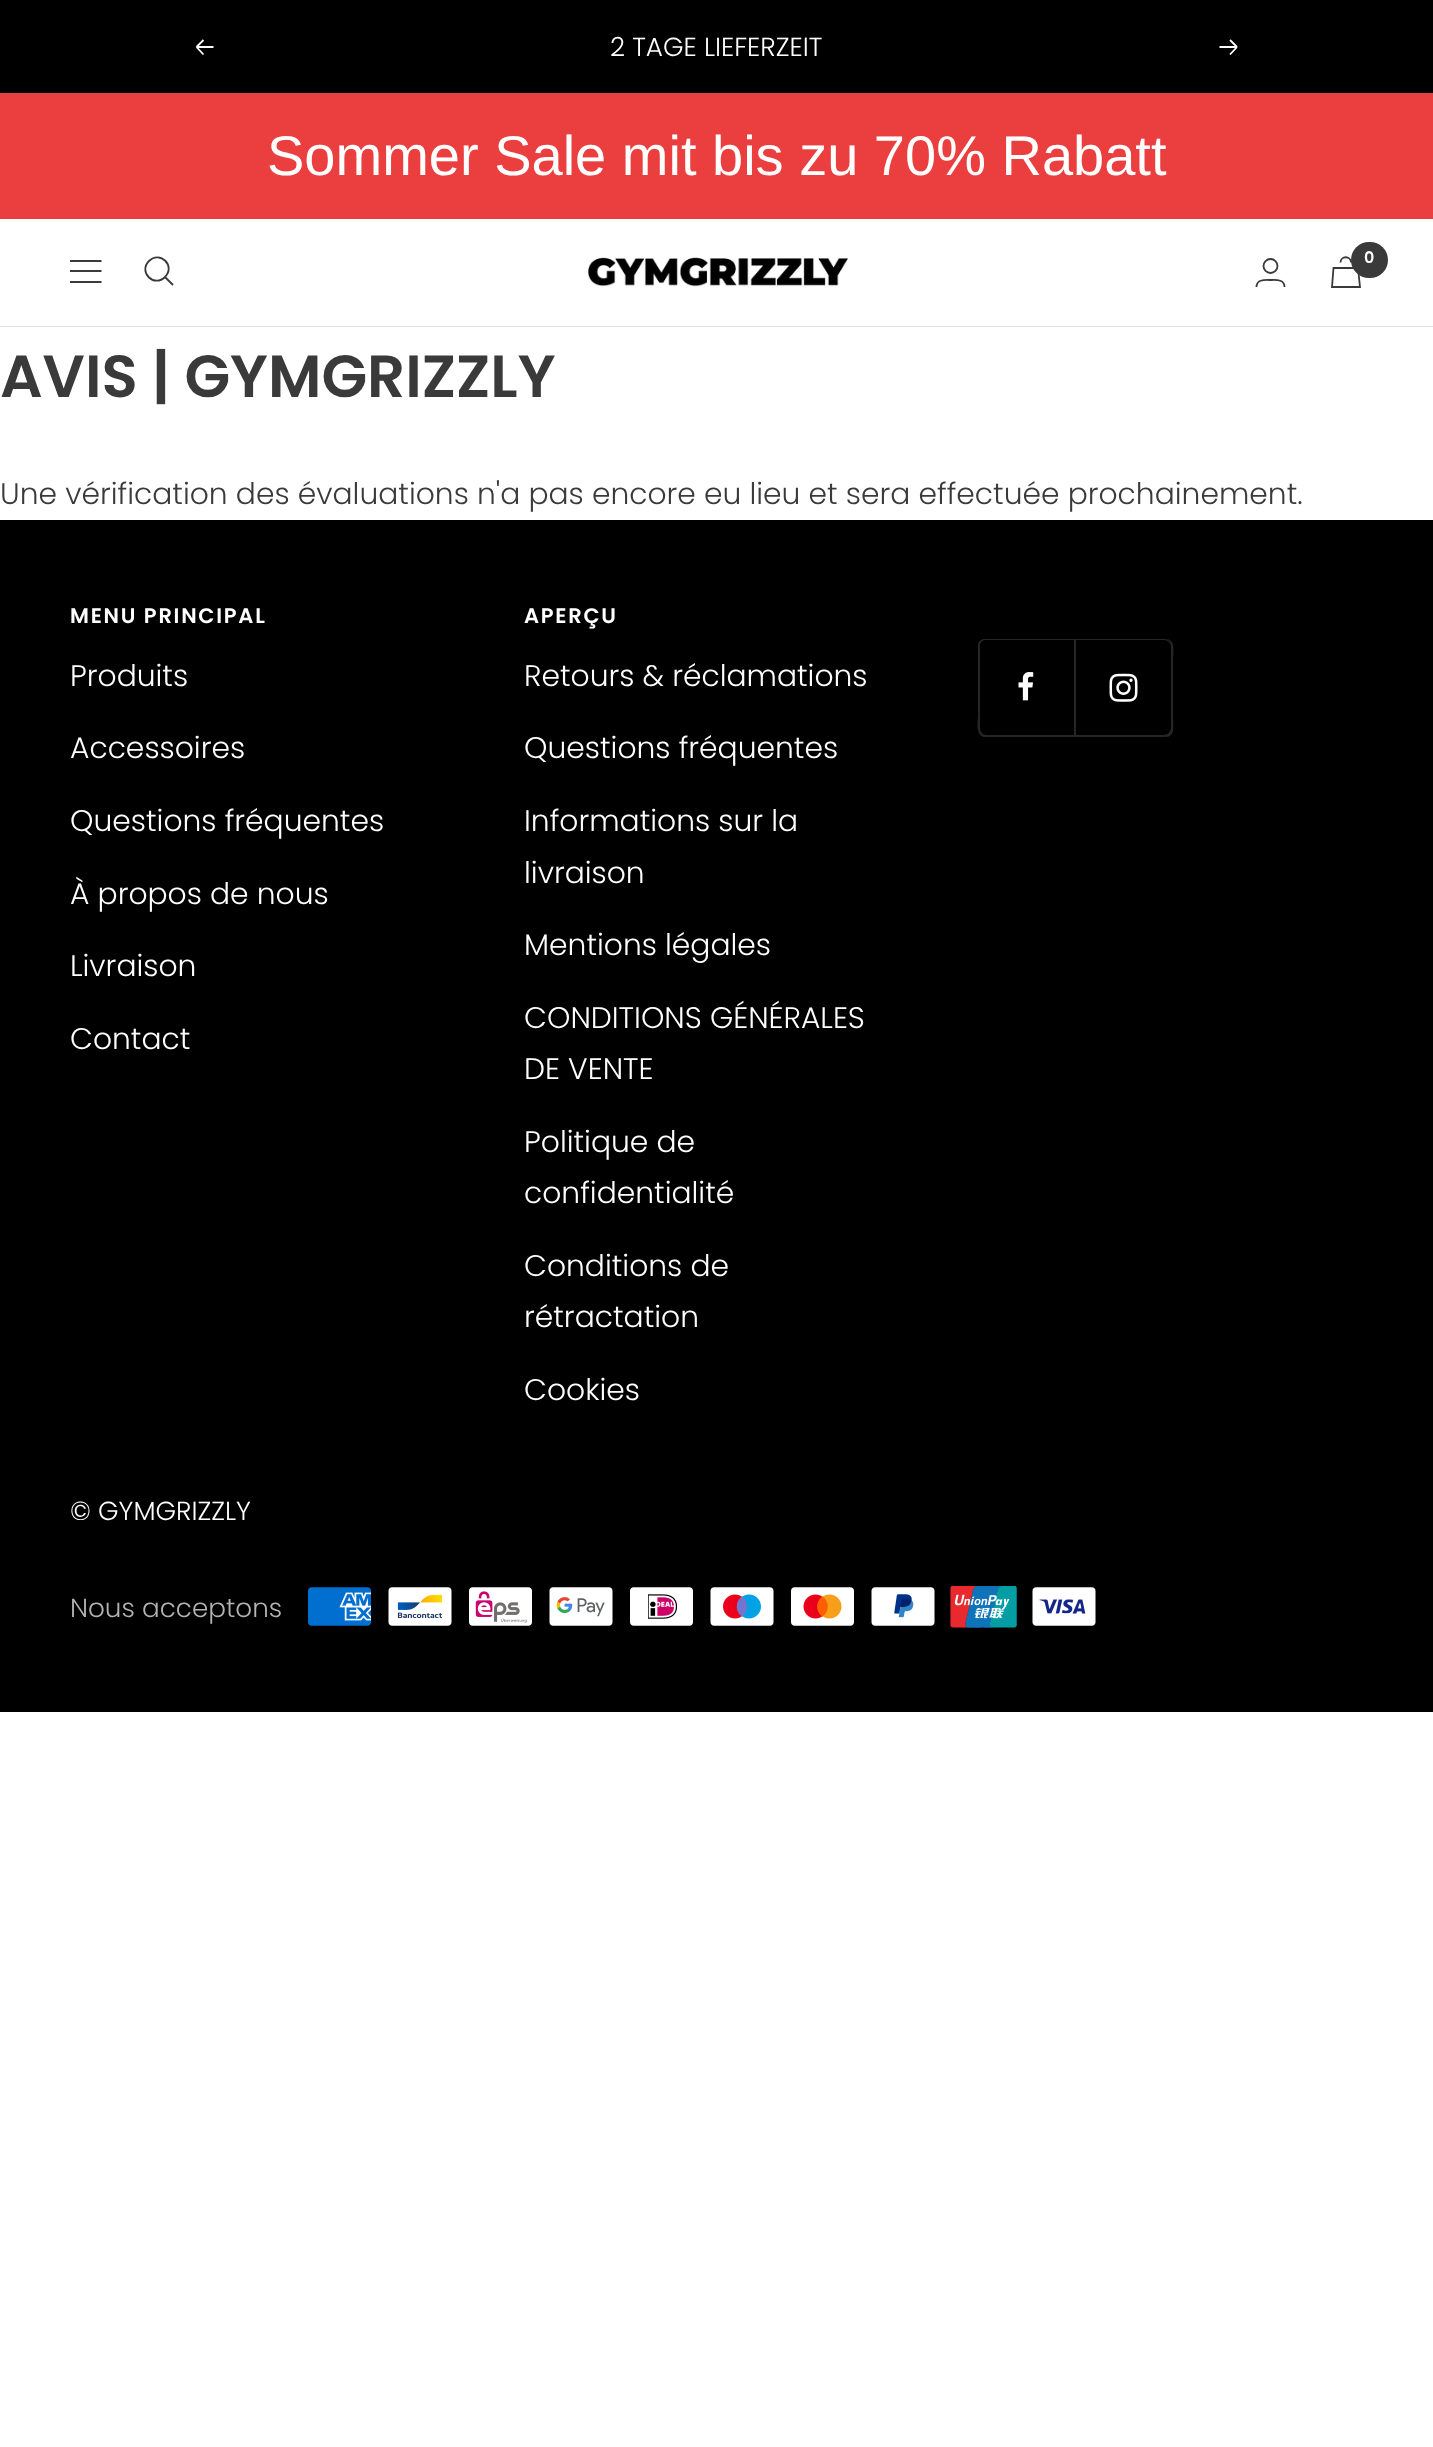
<!DOCTYPE html>
<meta charset="utf-8">
<style>body { margin: 0 } canvas { display: block }</style>
<canvas id="canvas" width="1433" height="2447"></canvas>
<script type="module">
  const canvas = document.getElementById("canvas");
  const ctx = canvas.getContext("2d");
  ctx.miterLimit = 4;
  ctx.fontKerning = "normal";
  async function loadImage(src) {
    const img = new Image();
    img.src = src;
    await img.decode();
    return img;
  }

  ctx.fillStyle = "#ffffff";
  ctx.fillRect(0, 0, 1433, 2447);
  ctx.fillStyle = "#000000";
  ctx.fillRect(0, 0, 1433, 93);
  ctx.beginPath();
  ctx.moveTo(213.5, 47);
  ctx.lineTo(196.5, 47);
  ctx.moveTo(196.5, 47);
  ctx.lineTo(203.5, 54.5);
  ctx.moveTo(196.5, 47);
  ctx.lineTo(203.5, 40);
  ctx.strokeStyle = "#ffffff";
  ctx.lineWidth = 1.8;
  ctx.stroke();
  ctx.font = "300 26.25px Poppins";
  ctx.fillStyle = "#ffffff";
  ctx.fillText("2 TAGE LIEFERZEIT", 610, 56);
  ctx.beginPath();
  ctx.moveTo(1219.5, 47);
  ctx.lineTo(1237, 47);
  ctx.moveTo(1237, 47);
  ctx.lineTo(1230, 54.5);
  ctx.moveTo(1237, 47);
  ctx.lineTo(1230, 40);
  ctx.stroke();
  ctx.fillStyle = "#e1e1e1";
  ctx.fillRect(0, 326, 1433, 1);
  ctx.fillStyle = "#eb3e3e";
  ctx.fillRect(0, 93, 1433, 126);
  ctx.font = "56px Liberation Sans";
  ctx.fillStyle = "#ffffff";
  ctx.fillText("Sommer Sale mit bis zu 70% Rabatt", 267, 175);
  ctx.beginPath();
  ctx.moveTo(70, 261);
  ctx.lineTo(101.5, 261);
  ctx.moveTo(70, 282);
  ctx.lineTo(101.5, 282);
  ctx.closePath();
  ctx.moveTo(70, 271);
  ctx.lineTo(101.5, 271);
  ctx.closePath();
  ctx.strokeStyle = "#3a3a3a";
  ctx.stroke();
  ctx.beginPath();
  ctx.moveTo(165, 277);
  ctx.bezierCurveTo(176, 266, 160, 250, 149, 261);
  ctx.bezierCurveTo(138, 272, 154, 288, 165, 277);
  ctx.closePath();
  ctx.moveTo(165, 277);
  ctx.lineTo(173, 285);
  ctx.stroke();
  ctx.drawImage(await loadImage("img1.png"), 588, 257, 260, 30);
  ctx.beginPath();
  ctx.arc(1270.5, 266, 7, 0, Math.PI * 2);
  ctx.stroke();
  ctx.beginPath();
  ctx.moveTo(1256.5, 287);
  ctx.bezierCurveTo(1256.5, 279, 1265, 280, 1270.5, 280);
  ctx.bezierCurveTo(1276, 280, 1284.5, 279, 1284.5, 287);
  ctx.stroke();
  ctx.beginPath();
  ctx.moveTo(1333.5, 268);
  ctx.lineTo(1358, 268);
  ctx.lineTo(1360, 287);
  ctx.lineTo(1332, 287);
  ctx.closePath();
  ctx.moveTo(1351, 262.5);
  ctx.bezierCurveTo(1351, 255.5, 1340.5, 255.5, 1340.5, 262.5);
  ctx.stroke();
  ctx.fillStyle = "#3a3a3a";
  ctx.beginPath();
  ctx.roundRect(1351, 242, 37, 36, 18);
  ctx.fill();
  ctx.font = "600 16px Poppins";
  ctx.fillStyle = "#ffffff";
  ctx.fillText("0", 1364, 263);
  ctx.font = "600 59.5px Poppins";
  ctx.fillStyle = "#3a3a3a";
  ctx.fillText("AVIS | GYMGRIZZLY", 0, 397);
  ctx.font = "300 29.75px Poppins";
  ctx.fillText("Une vérification des évaluations n'a pas encore eu lieu et sera effectuée prochainement.", 0, 504);
  ctx.fillStyle = "#000000";
  ctx.fillRect(0, 520, 1433, 1192);
  ctx.letterSpacing = "1.75px";
  ctx.font = "600 21px Poppins";
  ctx.fillStyle = "#ffffff";
  ctx.fillText("MENU PRINCIPAL", 70, 623);
  ctx.letterSpacing = "0px";
  ctx.font = "300 29.75px Poppins";
  ctx.fillText("Produits", 70, 686);
  ctx.fillText("Accessoires", 70, 758);
  ctx.fillText("Questions fréquentes", 70, 831);
  ctx.fillText("À propos de nous", 70, 904);
  ctx.fillText("Livraison", 70, 976);
  ctx.fillText("Contact", 70, 1049);
  ctx.letterSpacing = "1.75px";
  ctx.font = "600 21px Poppins";
  ctx.fillText("APERÇU", 524, 623);
  ctx.letterSpacing = "0px";
  ctx.font = "300 29.75px Poppins";
  ctx.fillText("Retours & réclamations", 524, 686);
  ctx.fillText("Questions fréquentes", 524, 758);
  ctx.fillText("Informations sur la", 524, 831);
  ctx.fillText("livraison", 524, 883);
  ctx.fillText("Mentions légales", 524, 955);
  ctx.fillText("CONDITIONS GÉNÉRALES", 524, 1028);
  ctx.fillText("DE VENTE", 524, 1079);
  ctx.fillText("Politique de", 524, 1152);
  ctx.fillText("confidentialité", 524, 1203);
  ctx.fillText("Conditions de", 524, 1276);
  ctx.fillText("rétractation", 524, 1327);
  ctx.fillText("Cookies", 524, 1400);
  ctx.fillStyle = "#262626";
  ctx.beginPath();
  ctx.moveTo(978, 646);
  ctx.lineTo(978, 716);
  ctx.bezierCurveTo(978, 721, 975, 735, 984, 737);
  ctx.lineTo(1075, 737);
  ctx.lineTo(1075, 641);
  ctx.lineTo(1074, 641);
  ctx.lineTo(1074, 735);
  ctx.lineTo(985, 735);
  ctx.bezierCurveTo(981, 735, 978, 732, 978, 728);
  ctx.closePath();
  ctx.fill();
  ctx.fillRect(1075, 639, 1, 96);
  ctx.beginPath();
  ctx.moveTo(985, 640);
  ctx.lineTo(1074, 640);
  ctx.lineTo(1074, 735);
  ctx.lineTo(1075, 735);
  ctx.lineTo(1075, 639);
  ctx.lineTo(985, 639);
  ctx.bezierCurveTo(981, 639, 978, 642, 978, 646);
  ctx.lineTo(978, 648);
  ctx.bezierCurveTo(978, 644, 981, 640, 985, 640);
  ctx.closePath();
  ctx.fill();
  ctx.beginPath();
  ctx.moveTo(985, 639);
  ctx.bezierCurveTo(981, 639, 978, 642, 978, 646);
  ctx.lineTo(978, 728);
  ctx.bezierCurveTo(978, 732, 981, 735, 985, 735);
  ctx.lineTo(987, 735);
  ctx.bezierCurveTo(983, 735, 980, 732, 980, 728);
  ctx.lineTo(980, 646);
  ctx.bezierCurveTo(980, 642, 983, 639, 987, 639);
  ctx.closePath();
  ctx.fill();
  ctx.drawImage(await loadImage("img2.png"), 1018, 672, 16, 29);
  ctx.beginPath();
  ctx.moveTo(1076, 735);
  ctx.lineTo(1076, 737);
  ctx.lineTo(1166, 737);
  ctx.bezierCurveTo(1170, 737, 1173, 734, 1173, 730);
  ctx.lineTo(1173, 648);
  ctx.bezierCurveTo(1173, 645, 1172, 643, 1170, 642);
  ctx.bezierCurveTo(1170, 643, 1171, 644, 1171, 646);
  ctx.lineTo(1171, 728);
  ctx.bezierCurveTo(1171, 732, 1168, 735, 1164, 735);
  ctx.closePath();
  ctx.fill();
  ctx.beginPath();
  ctx.moveTo(1075, 735);
  ctx.lineTo(1075, 737);
  ctx.lineTo(1165, 737);
  ctx.bezierCurveTo(1174, 735, 1171, 721, 1171, 716);
  ctx.lineTo(1171, 646);
  ctx.lineTo(1171, 728);
  ctx.bezierCurveTo(1171, 732, 1168, 735, 1164, 735);
  ctx.closePath();
  ctx.fill();
  ctx.beginPath();
  ctx.moveTo(1164, 735);
  ctx.bezierCurveTo(1176, 735, 1173, 724, 1173, 714);
  ctx.lineTo(1173, 660);
  ctx.bezierCurveTo(1173, 654, 1176, 639, 1166, 639);
  ctx.bezierCurveTo(1169, 640, 1171, 643, 1171, 646);
  ctx.lineTo(1171, 728);
  ctx.bezierCurveTo(1171, 732, 1168, 735, 1164, 735);
  ctx.closePath();
  ctx.fill();
  ctx.beginPath();
  ctx.moveTo(1075, 639);
  ctx.lineTo(1075, 640);
  ctx.lineTo(1164, 640);
  ctx.bezierCurveTo(1168, 640, 1171, 644, 1171, 648);
  ctx.bezierCurveTo(1171, 644, 1169, 639, 1164, 639);
  ctx.closePath();
  ctx.fill();
  ctx.drawImage(await loadImage("img3.png"), 1109, 673, 29, 29);
  ctx.font = "300 26.25px Poppins";
  ctx.fillStyle = "#ffffff";
  ctx.fillText("© GYMGRIZZLY", 70, 1520);
  ctx.fillStyle = "#b3b3b3";
  ctx.fillText("Nous acceptons", 70, 1617);
  ctx.drawImage(await loadImage("img4.png"), 308, 1587, 63, 39);
  ctx.drawImage(await loadImage("img5.png"), 388, 1587, 64, 39);
  ctx.drawImage(await loadImage("img6.png"), 469, 1587, 63, 39);
  ctx.drawImage(await loadImage("img7.png"), 549, 1587, 64, 39);
  ctx.drawImage(await loadImage("img8.png"), 630, 1587, 63, 39);
  ctx.drawImage(await loadImage("img9.png"), 710, 1587, 64, 39);
  ctx.drawImage(await loadImage("img10.png"), 791, 1587, 63, 39);
  ctx.drawImage(await loadImage("img11.png"), 871, 1587, 64, 39);
  ctx.drawImage(await loadImage("img12.png"), 950, 1586, 67, 42);
  ctx.drawImage(await loadImage("img13.png"), 1032, 1587, 64, 39);
</script>
